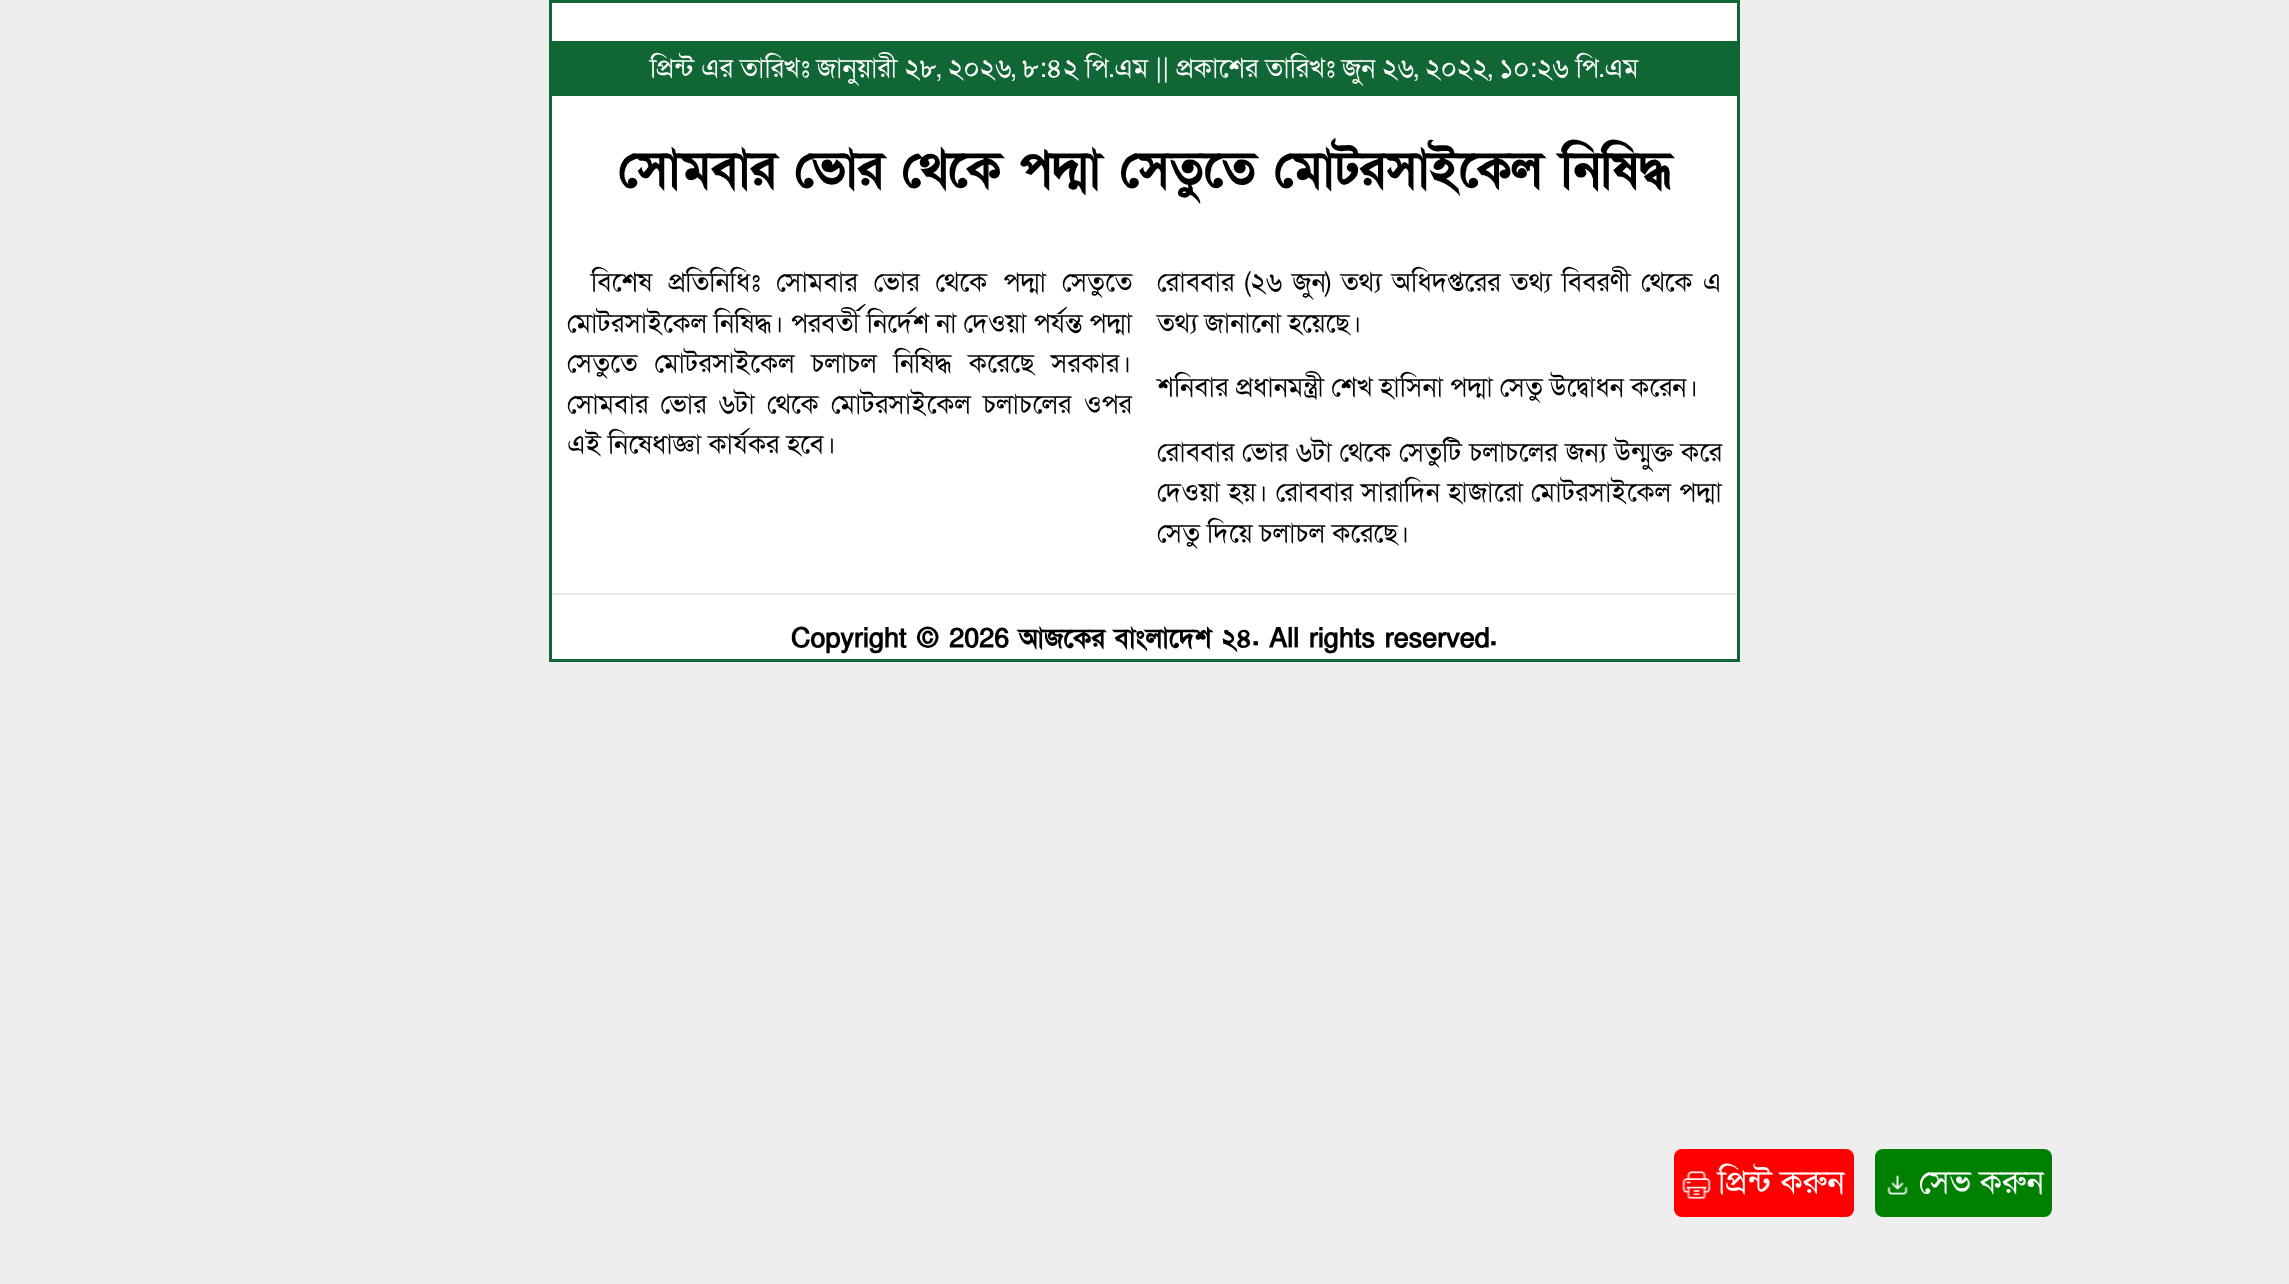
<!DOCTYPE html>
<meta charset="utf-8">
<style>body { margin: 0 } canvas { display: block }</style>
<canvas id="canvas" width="2289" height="1284"></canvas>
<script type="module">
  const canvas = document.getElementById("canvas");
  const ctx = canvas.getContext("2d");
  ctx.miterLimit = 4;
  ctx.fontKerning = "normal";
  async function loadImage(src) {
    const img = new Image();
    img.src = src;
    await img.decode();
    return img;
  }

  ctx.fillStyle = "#eeeeee";
  ctx.fillRect(0, 0, 2289, 1284);
  ctx.fillStyle = "#ffffff";
  ctx.beginPath();
  ctx.rect(550.5, 1.5, 1188, 659);
  ctx.fill();
  ctx.strokeStyle = "#106634";
  ctx.lineWidth = 3;
  ctx.stroke();
  ctx.fillStyle = "#106634";
  ctx.fillRect(552, 41, 1185, 55);
  ctx.font = "27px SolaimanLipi";
  ctx.fillStyle = "#ffffff";
  ctx.fillText("প্রিন্ট এর তারিখঃ জানুয়ারী ২৮, ২০২৬, ৮:৪২ পি.এম || প্রকাশের তারিখঃ জুন ২৬, ২০২২, ১০:২৬ পি.এম", 650, 77);
  ctx.font = "bold 51px SolaimanLipi";
  ctx.fillStyle = "#000000";
  ctx.fillText("সোমবার ভোর থেকে পদ্মা সেতুতে মোটরসাইকেল নিষিদ্ধ", 618, 186);
  ctx.wordSpacing = "9px";
  ctx.font = "27px SolaimanLipi";
  ctx.fillText("বিশেষ প্রতিনিধিঃ সোমবার ভোর থেকে পদ্মা সেতুতে", 591, 291);
  ctx.wordSpacing = "0px";
  ctx.fillText("মোটরসাইকেল নিষিদ্ধ। পরবর্তী নির্দেশ না দেওয়া পর্যন্ত পদ্মা", 567, 332);
  ctx.wordSpacing = "10px";
  ctx.fillText("সেতুতে মোটরসাইকেল চলাচল নিষিদ্ধ করেছে সরকার।", 567, 372);
  ctx.wordSpacing = "5.25px";
  ctx.fillText("সোমবার ভোর ৬টা থেকে মোটরসাইকেল চলাচলের ওপর", 567, 413);
  ctx.wordSpacing = "0px";
  ctx.fillText("এই নিষেধাজ্ঞা কার্যকর হবে।", 567, 453);
  ctx.wordSpacing = "3.25px";
  ctx.fillText("রোববার (২৬ জুন) তথ্য অধিদপ্তরের তথ্য বিবরণী থেকে এ", 1157, 291);
  ctx.wordSpacing = "0px";
  ctx.fillText("তথ্য জানানো হয়েছে।", 1157, 332);
  ctx.fillText("শনিবার প্রধানমন্ত্রী শেখ হাসিনা পদ্মা সেতু উদ্বোধন করেন।", 1157, 396);
  ctx.wordSpacing = "0.75px";
  ctx.fillText("রোববার ভোর ৬টা থেকে সেতুটি চলাচলের জন্য উন্মুক্ত করে", 1157, 461);
  ctx.wordSpacing = "1px";
  ctx.fillText("দেওয়া হয়। রোববার সারাদিন হাজারো মোটরসাইকেল পদ্মা", 1157, 501);
  ctx.wordSpacing = "0px";
  ctx.fillText("সেতু দিয়ে চলাচল করেছে।", 1157, 542);
  ctx.fillStyle = "#e6e6e6";
  ctx.fillRect(552, 593, 1185, 2);
  ctx.font = "bold 27px SolaimanLipi";
  ctx.fillStyle = "#000000";
  ctx.fillText("Copyright © 2026 আজকের বাংলাদেশ ২৪. All rights reserved.", 791, 647);
  ctx.fillStyle = "#ff0000";
  ctx.beginPath();
  ctx.roundRect(1674, 1149, 180, 68, 8);
  ctx.fill();
  ctx.drawImage(await loadImage("img1.png"), 1682, 1171, 29, 28);
  ctx.font = "33px SolaimanLipi";
  ctx.fillStyle = "#ffffff";
  ctx.fillText("প্রিন্ট করুন", 1718, 1193);
  ctx.fillStyle = "#008000";
  ctx.beginPath();
  ctx.roundRect(1875, 1149, 177, 68, 8);
  ctx.fill();
  ctx.drawImage(await loadImage("img2.png"), 1887, 1175, 21, 20);
  ctx.fillStyle = "#ffffff";
  ctx.fillText("সেভ করুন", 1919, 1193);
</script>
